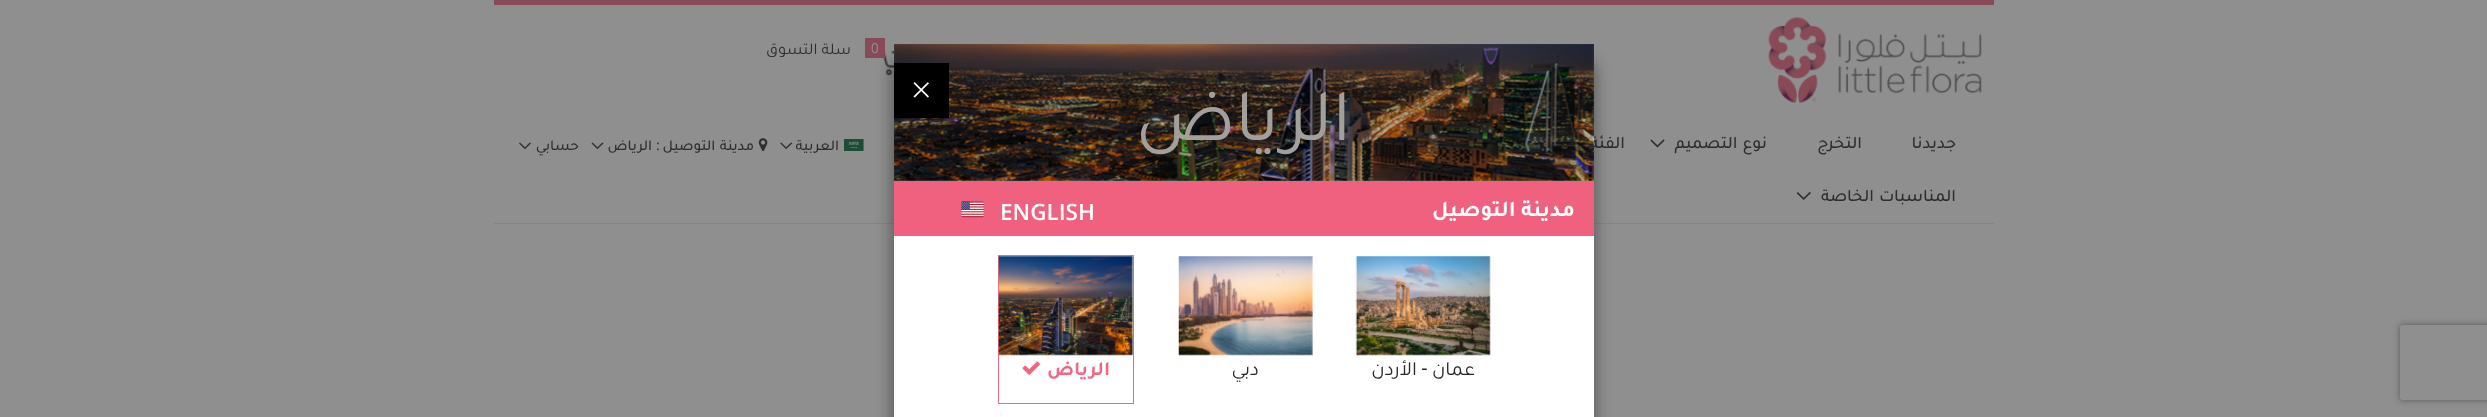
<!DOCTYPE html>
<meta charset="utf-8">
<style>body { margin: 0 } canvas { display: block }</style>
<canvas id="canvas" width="2487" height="417"></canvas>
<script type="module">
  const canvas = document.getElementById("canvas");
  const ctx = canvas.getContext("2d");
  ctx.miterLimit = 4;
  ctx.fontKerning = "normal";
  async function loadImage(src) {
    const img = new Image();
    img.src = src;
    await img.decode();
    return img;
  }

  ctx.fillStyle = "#8f8f8f";
  ctx.fillRect(0, 0, 2487, 417);
  ctx.fillStyle = "#894a57";
  ctx.fillRect(494, 0, 1500, 5);
  ctx.drawImage(await loadImage("img1.png"), 1768, 17, 214, 86);
  ctx.drawImage(await loadImage("img2.png"), 883, 50, 11, 26);
  ctx.fillRect(865, 38, 20, 20);
  ctx.font = "14px PT Sans";
  ctx.fillStyle = "#8f8f8f";
  ctx.fillText("0", 871, 53);
  ctx.direction = "rtl";
  ctx.font = "16.25px Tajawal";
  ctx.fillStyle = "#2e2e2e";
  ctx.fillText("سلة التسوق", 851, 54);
  ctx.fillStyle = "#848484";
  ctx.fillRect(494, 223, 1500, 1);
  ctx.font = "500 17.5px Tajawal";
  ctx.fillStyle = "#2e2e2e";
  ctx.fillText("جديدنا", 1956, 148);
  ctx.fillText("التخرج", 1862, 148);
  ctx.wordSpacing = "1px";
  ctx.fillText("نوع التصميم", 1767, 148);
  ctx.drawImage(await loadImage("img3.png"), 1650, 139, 15, 9);
  ctx.wordSpacing = "0px";
  ctx.fillText("الفئة", 1625, 148);
  ctx.wordSpacing = "1px";
  ctx.fillText("المناسبات الخاصة", 1956, 201);
  ctx.drawImage(await loadImage("img4.png"), 1796, 191, 15, 9);
  ctx.drawImage(await loadImage("img5.png"), 844, 139, 20, 12);
  ctx.wordSpacing = "0px";
  ctx.font = "500 15px Tajawal";
  ctx.fillText("العربية", 839, 150);
  ctx.drawImage(await loadImage("img6.png"), 780, 142, 13, 8);
  ctx.drawImage(await loadImage("img7.png"), 758, 138, 10, 13);
  ctx.wordSpacing = "1px";
  ctx.fillText("مدينة التوصيل", 754, 150);
  ctx.wordSpacing = "0px";
  ctx.font = "15px PT Sans";
  ctx.fillText(":", 659, 150);
  ctx.font = "500 15px Tajawal";
  ctx.fillText("الرياض", 652, 150);
  ctx.drawImage(await loadImage("img8.png"), 591, 142, 13, 8);
  ctx.fillText("حسابي", 579, 150);
  ctx.drawImage(await loadImage("img9.png"), 519, 142, 12, 8);
  ctx.save();
  ctx.beginPath();
  ctx.moveTo(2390, 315);
  ctx.lineTo(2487, 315);
  ctx.lineTo(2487, 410);
  ctx.lineTo(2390, 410);
  ctx.closePath();
  ctx.moveTo(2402.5, 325);
  ctx.lineTo(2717.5, 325);
  ctx.bezierCurveTo(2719, 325, 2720, 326, 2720, 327.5);
  ctx.lineTo(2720, 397.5);
  ctx.bezierCurveTo(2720, 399, 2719, 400, 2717.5, 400);
  ctx.lineTo(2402.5, 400);
  ctx.bezierCurveTo(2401, 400, 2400, 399, 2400, 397.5);
  ctx.lineTo(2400, 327.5);
  ctx.bezierCurveTo(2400, 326, 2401, 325, 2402.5, 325);
  ctx.closePath();
  ctx.clip("evenodd");
  ctx.fillStyle = "#565656";
  ctx.filter = "blur(3px)";
  ctx.beginPath();
  ctx.roundRect(2400, 325, 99, 75, 2.5);
  ctx.fill();
  ctx.filter = "none";
  ctx.restore();
  ctx.fillStyle = "rgba(0, 0, 0, 0.35)";
  ctx.filter = "blur(7.5px)";
  ctx.beginPath();
  ctx.roundRect(891, 60, 705, 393, 13);
  ctx.fill();
  ctx.filter = "none";
  ctx.fillStyle = "#ffffff";
  ctx.fillRect(894, 180, 700, 237);
  ctx.drawImage(await loadImage("img10.png"), 894, 44, 700, 137);
  ctx.fillStyle = "rgba(0, 0, 0, 0.3)";
  ctx.fillRect(894, 44, 700, 137);
  ctx.font = "75px Tajawal";
  ctx.fillStyle = "#a39f9d";
  ctx.fillText("الرياض", 1351, 140);
  ctx.fillStyle = "#f06180";
  ctx.fillRect(894, 181, 700, 55);
  ctx.font = "bold 22.5px Tajawal";
  ctx.fillStyle = "#fdfdfd";
  ctx.fillText("مدينة التوصيل", 1575, 216);
  ctx.direction = "ltr";
  ctx.font = "600 22.5px Open Sans";
  ctx.fillText("ENGLISH", 1000, 220);
  ctx.drawImage(await loadImage("img11.png"), 961, 201, 23, 17);
  ctx.drawImage(await loadImage("img12.png"), 1355, 256, 136, 100);
  ctx.direction = "rtl";
  ctx.font = "20px Tajawal";
  ctx.fillStyle = "#282828";
  ctx.fillText("عمان", 1475, 375);
  ctx.font = "20px PT Sans";
  ctx.fillText("-", 1428, 375);
  ctx.font = "20px Tajawal";
  ctx.fillText("الأردن", 1417, 375);
  ctx.drawImage(await loadImage("img13.png"), 1178, 256, 135, 100);
  ctx.fillText("دبي", 1259, 375);
  ctx.strokeStyle = "#f16682";
  ctx.strokeRect(998.5, 255.5, 135, 148);
  ctx.drawImage(await loadImage("img14.png"), 998, 256, 135, 100);
  ctx.font = "bold 20px Tajawal";
  ctx.fillStyle = "#f16682";
  ctx.fillText("الرياض", 1110, 375);
  ctx.drawImage(await loadImage("img15.png"), 1022, 361, 18, 14);
  ctx.fillStyle = "#000000";
  ctx.fillRect(894, 63, 55, 55);
  ctx.drawImage(await loadImage("img16.png"), 913, 82, 16, 16);
</script>
